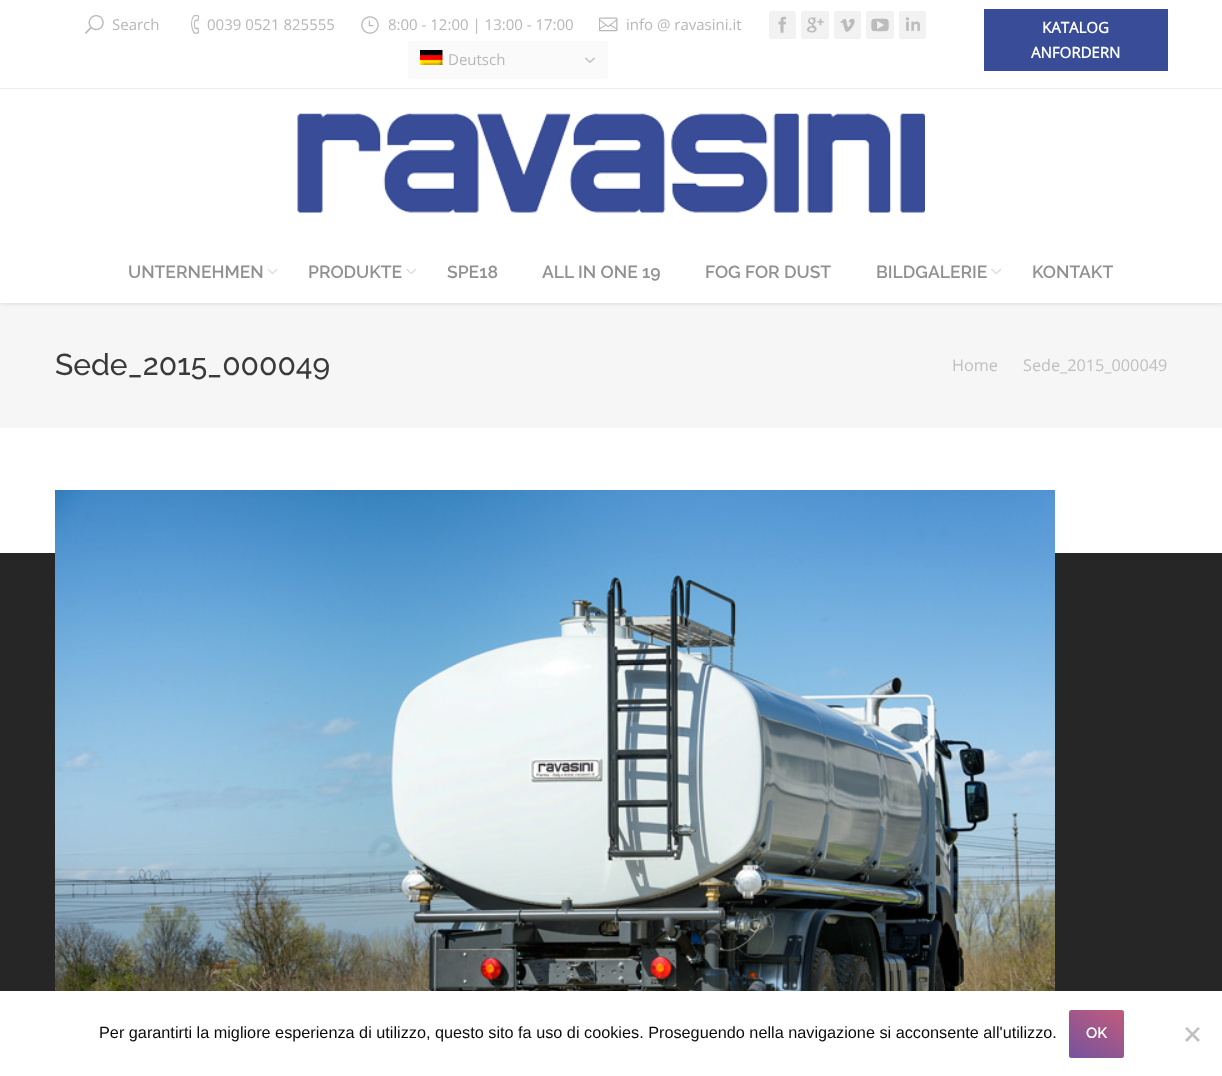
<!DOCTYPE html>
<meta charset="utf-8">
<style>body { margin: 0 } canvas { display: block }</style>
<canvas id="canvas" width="1222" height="1076"></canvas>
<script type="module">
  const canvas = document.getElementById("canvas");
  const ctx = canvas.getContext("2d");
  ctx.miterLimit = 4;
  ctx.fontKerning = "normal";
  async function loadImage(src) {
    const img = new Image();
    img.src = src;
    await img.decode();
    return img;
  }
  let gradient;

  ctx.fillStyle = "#ffffff";
  ctx.fillRect(0, 0, 1222, 1076);
  ctx.fillStyle = "#f6f6f6";
  ctx.fillRect(0, 303, 1222, 125);
  ctx.fillStyle = "rgba(0, 0, 0, 0.15)";
  ctx.filter = "blur(2.5px)";
  ctx.beginPath();
  ctx.rect(0, 0, 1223, 303);
  ctx.fill();
  ctx.filter = "none";
  ctx.fillStyle = "#ffffff";
  ctx.fillRect(0, 0, 1222, 303);
  ctx.fillStyle = "#ededed";
  ctx.fillRect(0, 88, 1222, 1);
  ctx.drawImage(await loadImage("img1.png"), 85, 15, 19, 19);
  ctx.font = "15px Open Sans";
  ctx.fillStyle = "#b7b7b7";
  ctx.fillText("Search", 112, 30);
  ctx.drawImage(await loadImage("img2.png"), 191, 15, 9, 19);
  ctx.fillText("0039 0521 825555", 207, 30);
  ctx.drawImage(await loadImage("img3.png"), 361, 16, 18, 18);
  ctx.fillText("8:00 - 12:00 | 13:00 - 17:00", 388, 30);
  ctx.drawImage(await loadImage("img4.png"), 599, 17, 19, 15);
  ctx.fillText("info @ ravasini.it", 626, 30);
  ctx.fillStyle = "#f2f2f2";
  ctx.beginPath();
  ctx.roundRect(769, 11, 27, 28, 2.5);
  ctx.fill();
  ctx.drawImage(await loadImage("img5.png"), 778, 16, 8, 17);
  ctx.beginPath();
  ctx.roundRect(801, 11, 28, 28, 2.5);
  ctx.fill();
  ctx.drawImage(await loadImage("img6.png"), 807, 17, 17, 16);
  ctx.beginPath();
  ctx.roundRect(834, 11, 27, 28, 2.5);
  ctx.fill();
  ctx.drawImage(await loadImage("img7.png"), 840, 18, 15, 14);
  ctx.beginPath();
  ctx.roundRect(866, 11, 28, 28, 2.5);
  ctx.fill();
  ctx.drawImage(await loadImage("img8.png"), 871, 18, 18, 14);
  ctx.beginPath();
  ctx.roundRect(899, 11, 27, 28, 2.5);
  ctx.fill();
  ctx.drawImage(await loadImage("img9.png"), 905, 17, 15, 14);
  ctx.fillStyle = "#fafafa";
  ctx.beginPath();
  ctx.roundRect(408, 41, 200, 38, 2.5);
  ctx.fill();
  ctx.drawImage(await loadImage("img10.png"), 420, 50, 23, 15);
  ctx.fillStyle = "#b7b7b7";
  ctx.fillText("Deutsch", 448, 65);
  ctx.drawImage(await loadImage("img11.png"), 585, 57, 10, 6);
  ctx.fillStyle = "#394c97";
  ctx.fillRect(984, 9, 184, 62);
  ctx.font = "bold 15px Open Sans";
  ctx.fillStyle = "#ffffff";
  ctx.fillText("KATALOG", 1042, 33);
  ctx.fillText("ANFORDERN", 1031, 58);
  ctx.drawImage(await loadImage("img12.png"), 297, 113, 628, 100);
  ctx.font = "600 17.5px Raleway";
  ctx.fillStyle = "#919191";
  ctx.fillText("UNTERNEHMEN", 128, 278);
  ctx.drawImage(await loadImage("img13.png"), 268, 268, 10, 7);
  ctx.fillText("PRODUKTE", 308, 278);
  ctx.drawImage(await loadImage("img14.png"), 406, 268, 10, 7);
  ctx.fillText("SPE18", 447, 278);
  ctx.fillText("ALL IN ONE 19", 542, 278);
  ctx.fillText("FOG FOR DUST", 705, 278);
  ctx.fillText("BILDGALERIE", 876, 278);
  ctx.drawImage(await loadImage("img14.png"), 991, 268, 10, 7);
  ctx.fillText("KONTAKT", 1032, 278);
  ctx.font = "500 30px Raleway";
  ctx.fillStyle = "#3a3a3a";
  ctx.fillText("Sede_2015_000049", 55, 375);
  ctx.font = "16.25px Open Sans";
  ctx.fillStyle = "#bfbfbf";
  ctx.fillText("Home", 952, 371);
  ctx.fillText("Sede_2015_000049", 1023, 371);
  ctx.fillStyle = "#262626";
  ctx.fillRect(0, 553, 1222, 438);
  ctx.drawImage(await loadImage("img15.png"), 55, 490, 1000, 501);
  ctx.font = "16.25px Liberation Sans";
  ctx.fillStyle = "#0a0a0a";
  ctx.fillText("Per garantirti la migliore esperienza di utilizzo, questo sito fa uso di cookies. Proseguendo nella navigazione si acconsente all'utilizzo.", 99, 1038);
  gradient = ctx.createLinearGradient(1079, 1063, 1113, 1004);
  gradient.addColorStop(0, "#75539e");
  gradient.addColorStop(1, "#c25b7c");
  ctx.fillStyle = gradient;
  ctx.beginPath();
  ctx.roundRect(1069, 1010, 55, 48, 2.5);
  ctx.fill();
  ctx.font = "600 15px Raleway";
  ctx.fillStyle = "#ffffff";
  ctx.fillText("OK", 1086, 1038);
  ctx.fillStyle = "#c0c0c0";
  ctx.beginPath();
  ctx.moveTo(1198, 1027);
  ctx.lineTo(1200, 1028.5);
  ctx.lineTo(1187, 1042);
  ctx.lineTo(1185, 1040);
  ctx.closePath();
  ctx.fill();
  ctx.beginPath();
  ctx.moveTo(1185, 1028.5);
  ctx.lineTo(1187, 1027);
  ctx.lineTo(1200, 1040);
  ctx.lineTo(1198, 1042);
  ctx.closePath();
  ctx.fill();
</script>
